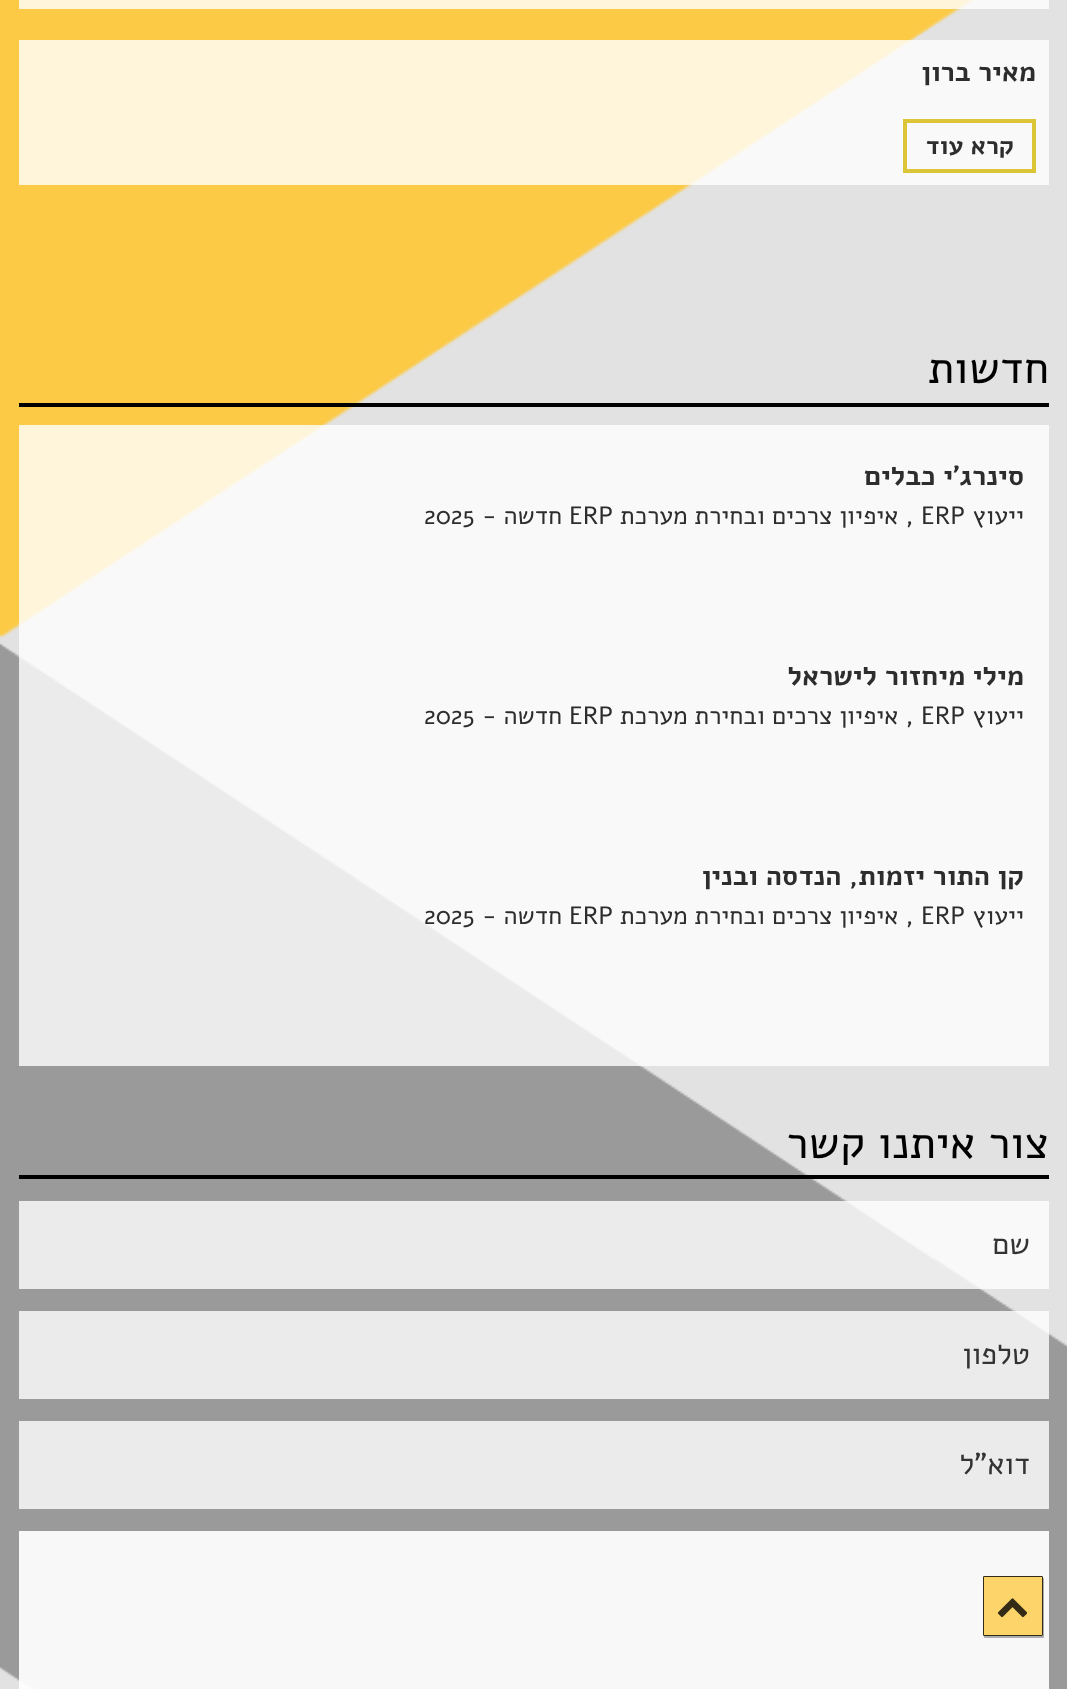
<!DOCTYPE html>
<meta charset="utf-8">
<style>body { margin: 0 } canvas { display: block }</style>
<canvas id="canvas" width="1067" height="1689"></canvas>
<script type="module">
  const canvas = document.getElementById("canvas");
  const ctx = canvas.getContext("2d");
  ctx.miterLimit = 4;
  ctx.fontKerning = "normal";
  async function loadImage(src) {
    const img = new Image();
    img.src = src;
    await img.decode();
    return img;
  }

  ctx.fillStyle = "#e2e2e2";
  ctx.fillRect(0, 0, 1067, 1689);
  ctx.drawImage(await loadImage("img1.png"), 0, 0, 1067, 1689);
  ctx.fillStyle = "rgba(255, 255, 255, 0.8)";
  ctx.fillRect(19, 0, 1030, 9);
  ctx.fillRect(19, 40, 1030, 145);
  ctx.direction = "rtl";
  ctx.font = "bold 27.5px Alef";
  ctx.fillStyle = "#2d2d2d";
  ctx.fillText("מאיר ברון", 1036, 81);
  ctx.strokeStyle = "#dcc637";
  ctx.lineWidth = 4;
  ctx.strokeRect(905, 121, 129, 50);
  ctx.font = "bold 25px Alef";
  ctx.fillText("קרא עוד", 1014, 154);
  ctx.fillStyle = "#000000";
  ctx.fillRect(19, 403, 1030, 4);
  ctx.font = "45px Alef";
  ctx.fillText("חדשות", 1049, 383);
  ctx.fillStyle = "rgba(255, 255, 255, 0.8)";
  ctx.fillRect(19, 425, 1030, 641);
  ctx.font = "bold 27.5px Alef";
  ctx.fillStyle = "#2d2d2d";
  ctx.fillText("סינרג'י כבלים", 1024, 485);
  ctx.font = "25px Alef";
  ctx.fillText("ייעוץ", 1024, 524);
  ctx.direction = "ltr";
  ctx.fillText("ERP", 921, 524);
  ctx.direction = "rtl";
  ctx.fillText(", איפיון צרכים ובחירת מערכת", 914, 524);
  ctx.direction = "ltr";
  ctx.fillText("ERP", 569, 524);
  ctx.direction = "rtl";
  ctx.fillText("חדשה -", 562, 524);
  ctx.direction = "ltr";
  ctx.fillText("2025", 424, 524);
  ctx.direction = "rtl";
  ctx.font = "bold 27.5px Alef";
  ctx.fillText("מילי מיחזור לישראל", 1024, 685);
  ctx.font = "25px Alef";
  ctx.fillText("ייעוץ", 1024, 724);
  ctx.direction = "ltr";
  ctx.fillText("ERP", 921, 724);
  ctx.direction = "rtl";
  ctx.fillText(", איפיון צרכים ובחירת מערכת", 914, 724);
  ctx.direction = "ltr";
  ctx.fillText("ERP", 569, 724);
  ctx.direction = "rtl";
  ctx.fillText("חדשה -", 562, 724);
  ctx.direction = "ltr";
  ctx.fillText("2025", 424, 724);
  ctx.direction = "rtl";
  ctx.font = "bold 27.5px Alef";
  ctx.fillText("קן התור יזמות, הנדסה ובנין", 1024, 885);
  ctx.font = "25px Alef";
  ctx.fillText("ייעוץ", 1024, 924);
  ctx.direction = "ltr";
  ctx.fillText("ERP", 921, 924);
  ctx.direction = "rtl";
  ctx.fillText(", איפיון צרכים ובחירת מערכת", 914, 924);
  ctx.direction = "ltr";
  ctx.fillText("ERP", 569, 924);
  ctx.direction = "rtl";
  ctx.fillText("חדשה -", 562, 924);
  ctx.direction = "ltr";
  ctx.fillText("2025", 424, 924);
  ctx.fillStyle = "#000000";
  ctx.fillRect(19, 1175, 1030, 4);
  ctx.direction = "rtl";
  ctx.font = "45px Alef";
  ctx.fillText("צור איתנו קשר", 1049, 1158);
  ctx.fillStyle = "rgba(255, 255, 255, 0.8)";
  ctx.fillRect(19, 1201, 1030, 88);
  ctx.font = "30px Alef";
  ctx.fillStyle = "#333333";
  ctx.fillText("שם", 1030, 1254);
  ctx.fillStyle = "rgba(255, 255, 255, 0.8)";
  ctx.fillRect(19, 1311, 1030, 88);
  ctx.fillStyle = "#333333";
  ctx.fillText("טלפון", 1030, 1364);
  ctx.fillStyle = "#ebebeb";
  ctx.fillRect(19, 1421, 1030, 88);
  ctx.fillStyle = "#333333";
  ctx.fillText("דוא\"ל", 1030, 1474);
  ctx.fillStyle = "rgba(255, 255, 255, 0.8)";
  ctx.fillRect(19, 1531, 1030, 158);
  ctx.fillStyle = "rgba(255, 255, 255, 0.64)";
  ctx.fillRect(19, 1531, 1030, 158);
  ctx.save();
  ctx.beginPath();
  ctx.moveTo(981, 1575);
  ctx.lineTo(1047, 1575);
  ctx.lineTo(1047, 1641);
  ctx.lineTo(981, 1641);
  ctx.closePath();
  ctx.moveTo(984, 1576);
  ctx.lineTo(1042, 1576);
  ctx.bezierCurveTo(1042.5, 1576, 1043, 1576.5, 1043, 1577);
  ctx.lineTo(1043, 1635);
  ctx.bezierCurveTo(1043, 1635.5, 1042.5, 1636, 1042, 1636);
  ctx.lineTo(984, 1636);
  ctx.bezierCurveTo(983.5, 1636, 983, 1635.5, 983, 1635);
  ctx.lineTo(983, 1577);
  ctx.bezierCurveTo(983, 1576.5, 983.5, 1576, 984, 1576);
  ctx.closePath();
  ctx.clip("evenodd");
  ctx.fillStyle = "#acacac";
  ctx.filter = "blur(0.5px)";
  ctx.beginPath();
  ctx.roundRect(984, 1578, 60, 60, 1);
  ctx.fill();
  ctx.filter = "none";
  ctx.restore();
  ctx.fillStyle = "rgba(252, 202, 69, 0.8)";
  ctx.beginPath();
  ctx.roundRect(983, 1576, 60, 60, 1);
  ctx.fill();
  ctx.beginPath();
  ctx.roundRect(983.5, 1576.5, 59, 59, 0.5);
  ctx.strokeStyle = "rgba(0, 0, 0, 0.8)";
  ctx.lineWidth = 1;
  ctx.stroke();
  ctx.drawImage(await loadImage("img2.png"), 997, 1598, 31, 20);
</script>
